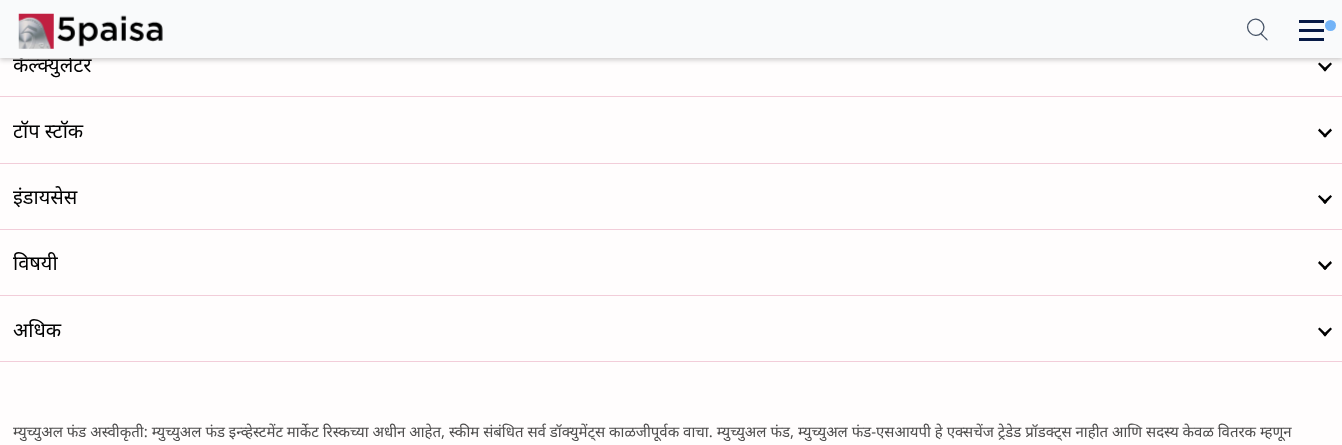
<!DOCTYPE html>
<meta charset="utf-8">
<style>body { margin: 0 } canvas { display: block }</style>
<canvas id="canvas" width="1342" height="445"></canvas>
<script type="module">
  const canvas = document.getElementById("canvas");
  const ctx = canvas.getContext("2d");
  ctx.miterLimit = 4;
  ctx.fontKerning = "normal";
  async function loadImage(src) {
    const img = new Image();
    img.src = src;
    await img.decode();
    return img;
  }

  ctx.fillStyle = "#fffdfd";
  ctx.fillRect(0, 0, 1342, 445);
  ctx.fillStyle = "#000000";
  ctx.beginPath();
  ctx.moveTo(1332, 64);
  ctx.lineTo(1325, 71.5);
  ctx.lineTo(1323, 69.5);
  ctx.lineTo(1330.5, 62.5);
  ctx.closePath();
  ctx.fill();
  ctx.beginPath();
  ctx.moveTo(1327, 69.5);
  ctx.lineTo(1325, 71.5);
  ctx.lineTo(1318, 64);
  ctx.lineTo(1319.5, 62.5);
  ctx.closePath();
  ctx.fill();
  ctx.fillStyle = "rgba(0, 0, 0, 0.2)";
  ctx.filter = "blur(2.5px)";
  ctx.beginPath();
  ctx.rect(0, 3, 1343, 57);
  ctx.fill();
  ctx.filter = "none";
  ctx.font = "20px Noto Sans";
  ctx.fillStyle = "#000000";
  ctx.fillText("कॅल्क्युलेटर", 13, 72);
  ctx.fillStyle = "#f9fafb";
  ctx.fillRect(0, 0, 1342, 58);
  ctx.drawImage(await loadImage("img1.png"), 18, 13, 145, 36);
  ctx.fillStyle = "#475467";
  ctx.beginPath();
  ctx.moveTo(1260.5, 33);
  ctx.bezierCurveTo(1261.5, 32.5, 1264, 36, 1264.5, 36.5);
  ctx.bezierCurveTo(1265, 37, 1268.5, 39.5, 1267.5, 40.5);
  ctx.bezierCurveTo(1267, 41, 1264, 37.5, 1263.5, 37);
  ctx.bezierCurveTo(1263, 36.5, 1259.5, 34, 1260.5, 33);
  ctx.closePath();
  ctx.fill();
  ctx.beginPath();
  ctx.moveTo(1250, 21.5);
  ctx.bezierCurveTo(1257.5, 14, 1269, 25.5, 1261.5, 33);
  ctx.bezierCurveTo(1254, 40.5, 1242.5, 29, 1250, 21.5);
  ctx.closePath();
  ctx.strokeStyle = "#475467";
  ctx.lineWidth = 1.3;
  ctx.stroke();
  ctx.fillStyle = "#071a46";
  ctx.fillRect(1299, 20, 25, 3);
  ctx.fillStyle = "#73b3f7";
  ctx.beginPath();
  ctx.arc(1330.5, 25.5, 5.5, 0, Math.PI * 2);
  ctx.fill();
  ctx.fillStyle = "#071a46";
  ctx.fillRect(1299, 29, 25, 3);
  ctx.fillRect(1299, 38, 25, 3);
  ctx.fillStyle = "#f2cdd9";
  ctx.fillRect(0, 96, 1342, 1);
  ctx.fillRect(0, 163, 1342, 1);
  ctx.fillStyle = "#000000";
  ctx.fillText("टॉप स्टॉक", 13, 138);
  ctx.beginPath();
  ctx.moveTo(1332, 130.5);
  ctx.lineTo(1325, 137.5);
  ctx.lineTo(1323, 136);
  ctx.lineTo(1330.5, 128.5);
  ctx.closePath();
  ctx.fill();
  ctx.beginPath();
  ctx.moveTo(1327, 136);
  ctx.lineTo(1325, 137.5);
  ctx.lineTo(1318, 130.5);
  ctx.lineTo(1319.5, 128.5);
  ctx.closePath();
  ctx.fill();
  ctx.fillStyle = "#f2cdd9";
  ctx.fillRect(0, 229, 1342, 1);
  ctx.fillStyle = "#000000";
  ctx.fillText("इंडायसेस", 13, 204);
  ctx.beginPath();
  ctx.moveTo(1332, 196.5);
  ctx.lineTo(1325, 204);
  ctx.lineTo(1323, 202);
  ctx.lineTo(1330.5, 195);
  ctx.closePath();
  ctx.fill();
  ctx.beginPath();
  ctx.moveTo(1327, 202);
  ctx.lineTo(1325, 204);
  ctx.lineTo(1318, 196.5);
  ctx.lineTo(1319.5, 195);
  ctx.closePath();
  ctx.fill();
  ctx.fillStyle = "#f2cdd9";
  ctx.fillRect(0, 295, 1342, 1);
  ctx.fillStyle = "#000000";
  ctx.fillText("विषयी", 13, 270);
  ctx.beginPath();
  ctx.moveTo(1332, 263);
  ctx.lineTo(1325, 270);
  ctx.lineTo(1323, 268.5);
  ctx.lineTo(1330.5, 261);
  ctx.closePath();
  ctx.fill();
  ctx.beginPath();
  ctx.moveTo(1327, 268.5);
  ctx.lineTo(1325, 270);
  ctx.lineTo(1318, 263);
  ctx.lineTo(1319.5, 261);
  ctx.closePath();
  ctx.fill();
  ctx.fillStyle = "#f2cdd9";
  ctx.fillRect(0, 361, 1342, 1);
  ctx.fillStyle = "#000000";
  ctx.fillText("अधिक", 13, 337);
  ctx.beginPath();
  ctx.moveTo(1332, 329);
  ctx.lineTo(1325, 336.5);
  ctx.lineTo(1323, 334.5);
  ctx.lineTo(1330.5, 327.5);
  ctx.closePath();
  ctx.fill();
  ctx.beginPath();
  ctx.moveTo(1327, 334.5);
  ctx.lineTo(1325, 336.5);
  ctx.lineTo(1318, 329);
  ctx.lineTo(1319.5, 327.5);
  ctx.closePath();
  ctx.fill();
  ctx.font = "15px Noto Sans";
  ctx.fillStyle = "#4d4c4c";
  ctx.fillText("म्युच्युअल फंड अस्वीकृती: म्युच्युअल फंड इन्व्हेस्टमेंट मार्केट रिस्कच्या अधीन आहेत, स्कीम संबंधित सर्व डॉक्युमेंट्स काळजीपूर्वक वाचा. म्युच्युअल फंड, म्युच्युअल फंड-एसआयपी हे एक्सचेंज ट्रेडेड प्रॉडक्ट्स नाहीत आणि सदस्य केवळ वितरक म्हणून", 13, 437);
</script>
